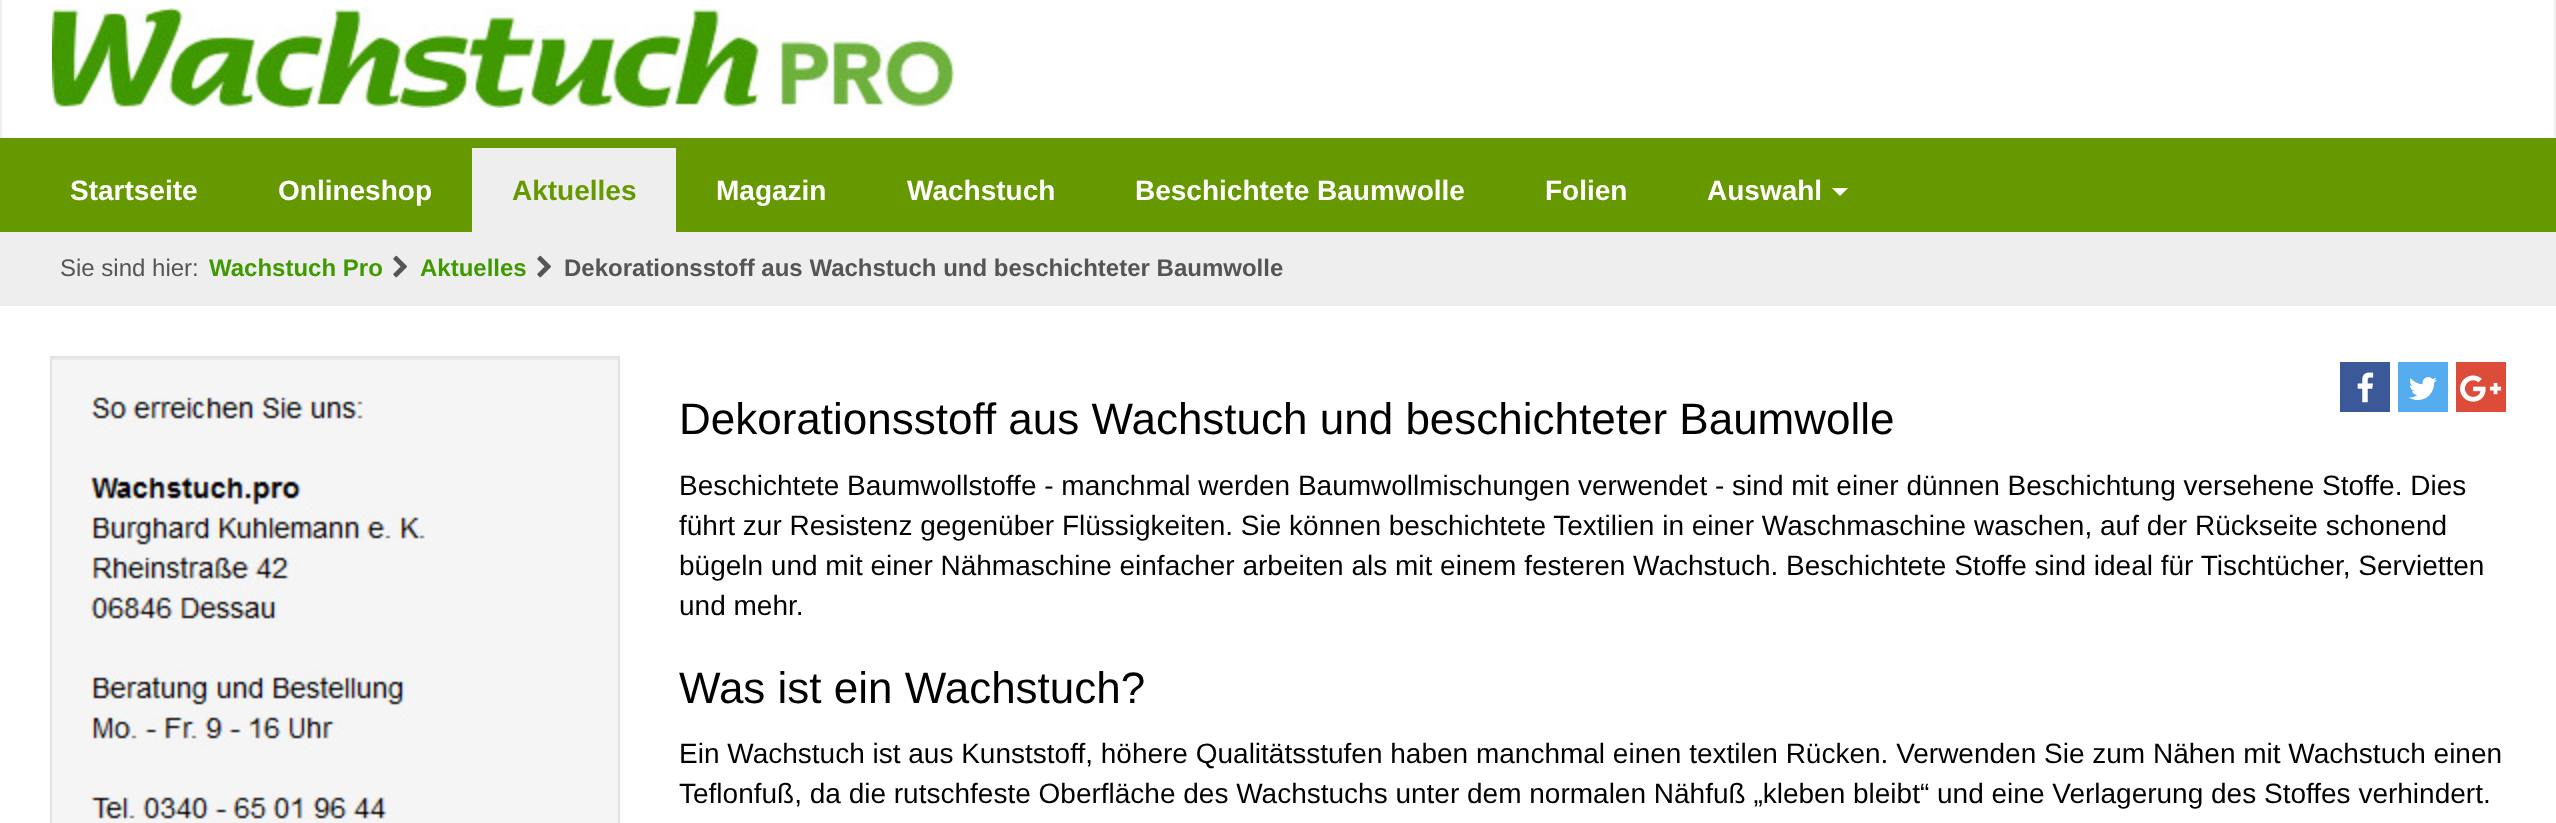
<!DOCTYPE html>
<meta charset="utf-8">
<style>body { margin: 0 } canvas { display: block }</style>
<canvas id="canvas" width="2556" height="823"></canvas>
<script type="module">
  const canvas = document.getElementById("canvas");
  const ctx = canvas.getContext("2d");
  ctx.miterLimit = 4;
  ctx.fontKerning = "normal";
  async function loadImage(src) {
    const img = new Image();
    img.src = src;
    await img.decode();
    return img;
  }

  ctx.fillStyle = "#669900";
  ctx.fillRect(0, 0, 2556, 823);
  ctx.fillStyle = "#ffffff";
  ctx.fillRect(2, 0, 2552, 138);
  ctx.fillStyle = "#eeeeee";
  ctx.fillRect(2554, 0, 2, 138);
  ctx.fillRect(0, 0, 2, 138);
  ctx.drawImage(await loadImage("img1.png"), 52, 8, 902, 100);
  ctx.font = "bold 28px Liberation Sans";
  ctx.fillStyle = "#ffffff";
  ctx.fillText("Startseite", 70, 200);
  ctx.fillText("Onlineshop", 278, 200);
  ctx.fillStyle = "#eeeeee";
  ctx.fillRect(472, 148, 204, 84);
  ctx.fillStyle = "#669900";
  ctx.fillText("Aktuelles", 512, 200);
  ctx.fillStyle = "#ffffff";
  ctx.fillText("Magazin", 716, 200);
  ctx.fillText("Wachstuch", 907, 200);
  ctx.fillText("Beschichtete Baumwolle", 1135, 200);
  ctx.fillText("Folien", 1545, 200);
  ctx.fillText("Auswahl", 1707, 200);
  ctx.beginPath();
  ctx.moveTo(1832, 188);
  ctx.lineTo(1848, 188);
  ctx.lineTo(1840, 196);
  ctx.closePath();
  ctx.fill();
  ctx.fillStyle = "#eeeeee";
  ctx.fillRect(0, 232, 2556, 74);
  ctx.font = "24px Liberation Sans";
  ctx.fillStyle = "#555555";
  ctx.fillText("Sie sind hier:", 60, 276);
  ctx.font = "bold 24px Liberation Sans";
  ctx.fillStyle = "#409900";
  ctx.fillText("Wachstuch Pro", 209, 276);
  ctx.drawImage(await loadImage("img2.png"), 393, 255, 14, 23);
  ctx.fillText("Aktuelles", 420, 276);
  ctx.drawImage(await loadImage("img2.png"), 537, 255, 14, 23);
  ctx.fillStyle = "#555555";
  ctx.fillText("Dekorationsstoff aus Wachstuch und beschichteter Baumwolle", 564, 276);
  ctx.fillStyle = "#ffffff";
  ctx.fillRect(0, 306, 2556, 517);
  ctx.fillStyle = "#f5f5f5";
  ctx.fillRect(52, 360, 566, 463);
  ctx.fillStyle = "#e9e9e9";
  ctx.fillRect(52, 358, 566, 2);
  ctx.strokeStyle = "#e3e3e3";
  ctx.lineWidth = 2;
  ctx.strokeRect(51, 357, 568, 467);
  ctx.drawImage(await loadImage("img3.png"), 90, 396, 336, 427);
  ctx.fillStyle = "#3b5998";
  ctx.fillRect(2340, 362, 50, 50);
  ctx.drawImage(await loadImage("img4.png"), 2357, 372, 17, 31);
  ctx.fillStyle = "#55acee";
  ctx.fillRect(2398, 362, 50, 50);
  ctx.drawImage(await loadImage("img5.png"), 2409, 377, 28, 23);
  ctx.fillStyle = "#dd4b39";
  ctx.fillRect(2456, 362, 50, 50);
  ctx.drawImage(await loadImage("img6.png"), 2460, 375, 42, 27);
  ctx.font = "44px Liberation Sans";
  ctx.fillStyle = "#000000";
  ctx.fillText("Dekorationsstoff aus Wachstuch und beschichteter Baumwolle", 679, 434);
  ctx.font = "28px Liberation Sans";
  ctx.fillText("Beschichtete Baumwollstoffe - manchmal werden Baumwollmischungen verwendet - sind mit einer dünnen Beschichtung versehene Stoffe. Dies", 679, 495);
  ctx.fillText("führt zur Resistenz gegenüber Flüssigkeiten. Sie können beschichtete Textilien in einer Waschmaschine waschen, auf der Rückseite schonend", 679, 535);
  ctx.fillText("bügeln und mit einer Nähmaschine einfacher arbeiten als mit einem festeren Wachstuch. Beschichtete Stoffe sind ideal für Tischtücher, Servietten", 679, 575);
  ctx.fillText("und mehr.", 679, 615);
  ctx.font = "44px Liberation Sans";
  ctx.fillText("Was ist ein Wachstuch?", 679, 703);
  ctx.font = "28px Liberation Sans";
  ctx.fillText("Ein Wachstuch ist aus Kunststoff, höhere Qualitätsstufen haben manchmal einen textilen Rücken. Verwenden Sie zum Nähen mit Wachstuch einen", 679, 763);
  ctx.fillText("Teflonfuß, da die rutschfeste Oberfläche des Wachstuchs unter dem normalen Nähfuß „kleben bleibt“ und eine Verlagerung des Stoffes verhindert.", 679, 803);
</script>
